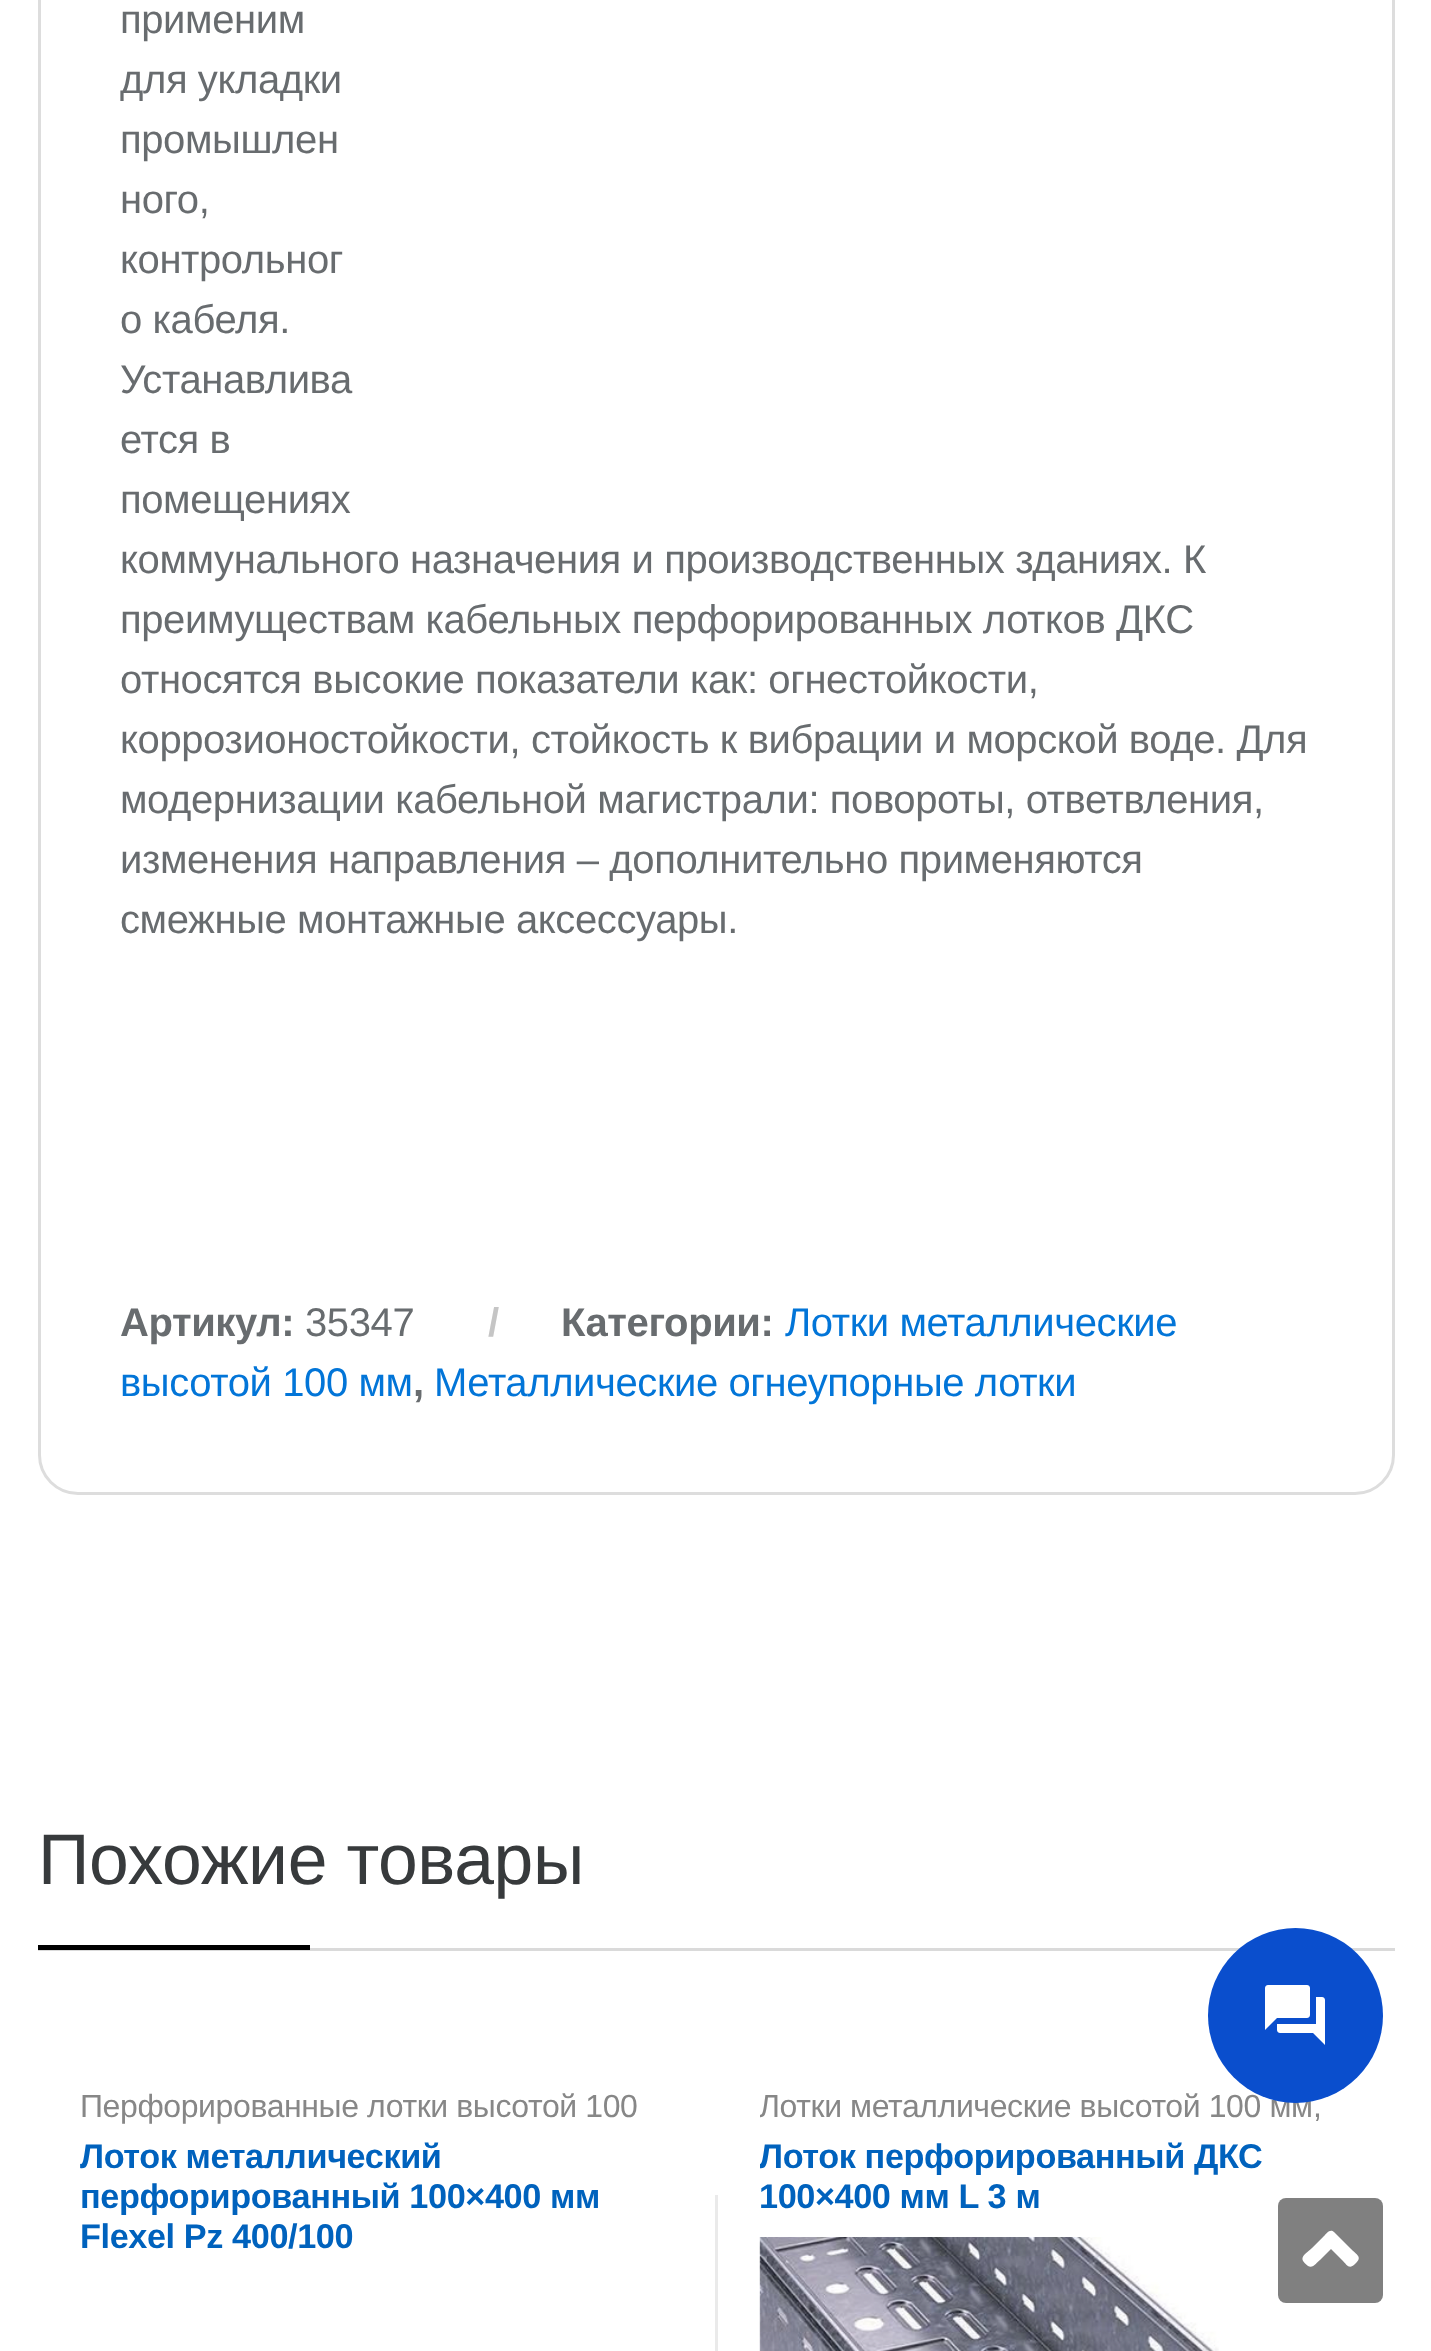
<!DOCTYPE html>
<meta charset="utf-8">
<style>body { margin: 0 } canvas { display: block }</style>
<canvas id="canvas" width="1431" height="2351"></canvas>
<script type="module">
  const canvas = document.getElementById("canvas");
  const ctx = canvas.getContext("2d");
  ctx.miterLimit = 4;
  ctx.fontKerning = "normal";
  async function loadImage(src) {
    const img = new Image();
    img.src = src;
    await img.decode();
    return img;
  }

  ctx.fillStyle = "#ffffff";
  ctx.fillRect(0, 0, 1431, 2351);
  ctx.beginPath();
  ctx.roundRect(39.5, -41.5, 1354, 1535, 38.5);
  ctx.strokeStyle = "#dddddd";
  ctx.lineWidth = 3;
  ctx.stroke();
  ctx.letterSpacing = "-0.4px";
  ctx.font = "40px Liberation Sans";
  ctx.fillStyle = "#686c6f";
  ctx.fillText("применим", 120, 33);
  ctx.fillText("для укладки", 120, 93);
  ctx.fillText("промышлен", 120, 153);
  ctx.fillText("ного,", 120, 213);
  ctx.fillText("контрольног", 120, 273);
  ctx.fillText("о кабеля.", 120, 333);
  ctx.fillText("Устанавлива", 120, 393);
  ctx.fillText("ется в", 120, 453);
  ctx.fillText("помещениях", 120, 513);
  ctx.fillText("коммунального назначения и производственных зданиях. К", 120, 573);
  ctx.fillText("преимуществам кабельных перфорированных лотков ДКС", 120, 633);
  ctx.fillText("относятся высокие показатели как: огнестойкости,", 120, 693);
  ctx.fillText("коррозионостойкости, стойкость к вибрации и морской воде. Для", 120, 753);
  ctx.fillText("модернизации кабельной магистрали: повороты, ответвления,", 120, 813);
  ctx.fillText("изменения направления – дополнительно применяются", 120, 873);
  ctx.fillText("смежные монтажные аксессуары.", 120, 933);
  ctx.font = "bold 40px Liberation Sans";
  ctx.fillText("Артикул:", 120, 1336);
  ctx.font = "40px Liberation Sans";
  ctx.fillText("35347", 305, 1336);
  ctx.font = "bold 40px Liberation Sans";
  ctx.fillStyle = "#c5c5c5";
  ctx.fillText("/", 488, 1336);
  ctx.fillStyle = "#686c6f";
  ctx.fillText("Категории:", 561, 1336);
  ctx.font = "40px Liberation Sans";
  ctx.fillStyle = "#0275d8";
  ctx.fillText("Лотки металлические", 785, 1336);
  ctx.fillText("высотой 100 мм", 120, 1396);
  ctx.font = "bold 40px Liberation Sans";
  ctx.fillStyle = "#686c6f";
  ctx.fillText(",", 413, 1396);
  ctx.font = "40px Liberation Sans";
  ctx.fillStyle = "#0275d8";
  ctx.fillText("Металлические огнеупорные лотки", 434, 1396);
  ctx.fillStyle = "#dadada";
  ctx.fillRect(38, 1948, 1357, 3);
  ctx.font = "71.5px Liberation Sans";
  ctx.fillStyle = "#373a3c";
  ctx.fillText("Похожие товары", 38, 1884);
  ctx.fillStyle = "#000000";
  ctx.fillRect(38, 1945, 272, 5);
  ctx.font = "32px Liberation Sans";
  ctx.fillStyle = "#878787";
  ctx.fillText("Перфорированные лотки высотой 100", 80, 2117);
  ctx.font = "bold 34.25px Liberation Sans";
  ctx.fillStyle = "#0062bd";
  ctx.fillText("Лоток металлический", 80, 2168);
  ctx.fillText("перфорированный 100×400 мм", 80, 2208);
  ctx.fillText("Flexel Pz 400/100", 80, 2248);
  ctx.fillStyle = "#eaeaea";
  ctx.fillRect(715, 2195, 3, 156);
  ctx.save();
  ctx.beginPath();
  ctx.rect(760, 2090, 593, 35);
  ctx.clip();
  ctx.font = "32px Liberation Sans";
  ctx.fillStyle = "#878787";
  ctx.fillText("Лотки металлические высотой 100 мм", 759, 2117);
  ctx.restore();
  ctx.font = "32px Liberation Sans";
  ctx.fillStyle = "#878787";
  ctx.fillText(",", 1313, 2117);
  ctx.save();
  ctx.beginPath();
  ctx.rect(760, 2138, 593, 80);
  ctx.clip();
  ctx.font = "bold 34.25px Liberation Sans";
  ctx.fillStyle = "#0062bd";
  ctx.fillText("Лоток перфорированный ДКС", 759, 2168);
  ctx.restore();
  ctx.font = "bold 34.25px Liberation Sans";
  ctx.fillStyle = "#0062bd";
  ctx.fillText("100×400 мм L 3 м", 759, 2208);
  ctx.drawImage(await loadImage("img1.png"), 759, 2237, 460, 114);
  ctx.fillStyle = "#0a4ecd";
  ctx.beginPath();
  ctx.arc(1295.5, 2015.5, 87.5, 0, Math.PI * 2);
  ctx.fill();
  ctx.drawImage(await loadImage("img2.png"), 1265, 1985, 60, 60);
  ctx.fillStyle = "#808080";
  ctx.beginPath();
  ctx.roundRect(1278, 2198, 105, 105, 8);
  ctx.fill();
  ctx.fillStyle = "#ffffff";
  ctx.beginPath();
  ctx.moveTo(1334, 2232);
  ctx.lineTo(1350, 2248);
  ctx.bezierCurveTo(1357, 2255, 1363, 2257, 1355, 2264);
  ctx.bezierCurveTo(1349, 2270, 1347, 2265, 1342, 2260);
  ctx.lineTo(1331, 2249);
  ctx.lineTo(1320, 2260);
  ctx.bezierCurveTo(1317, 2262, 1313, 2269, 1308, 2266);
  ctx.bezierCurveTo(1298, 2258, 1303, 2256, 1312, 2248);
  ctx.lineTo(1324, 2236);
  ctx.bezierCurveTo(1326, 2234, 1330, 2228, 1334, 2232);
  ctx.closePath();
  ctx.fill();
</script>
